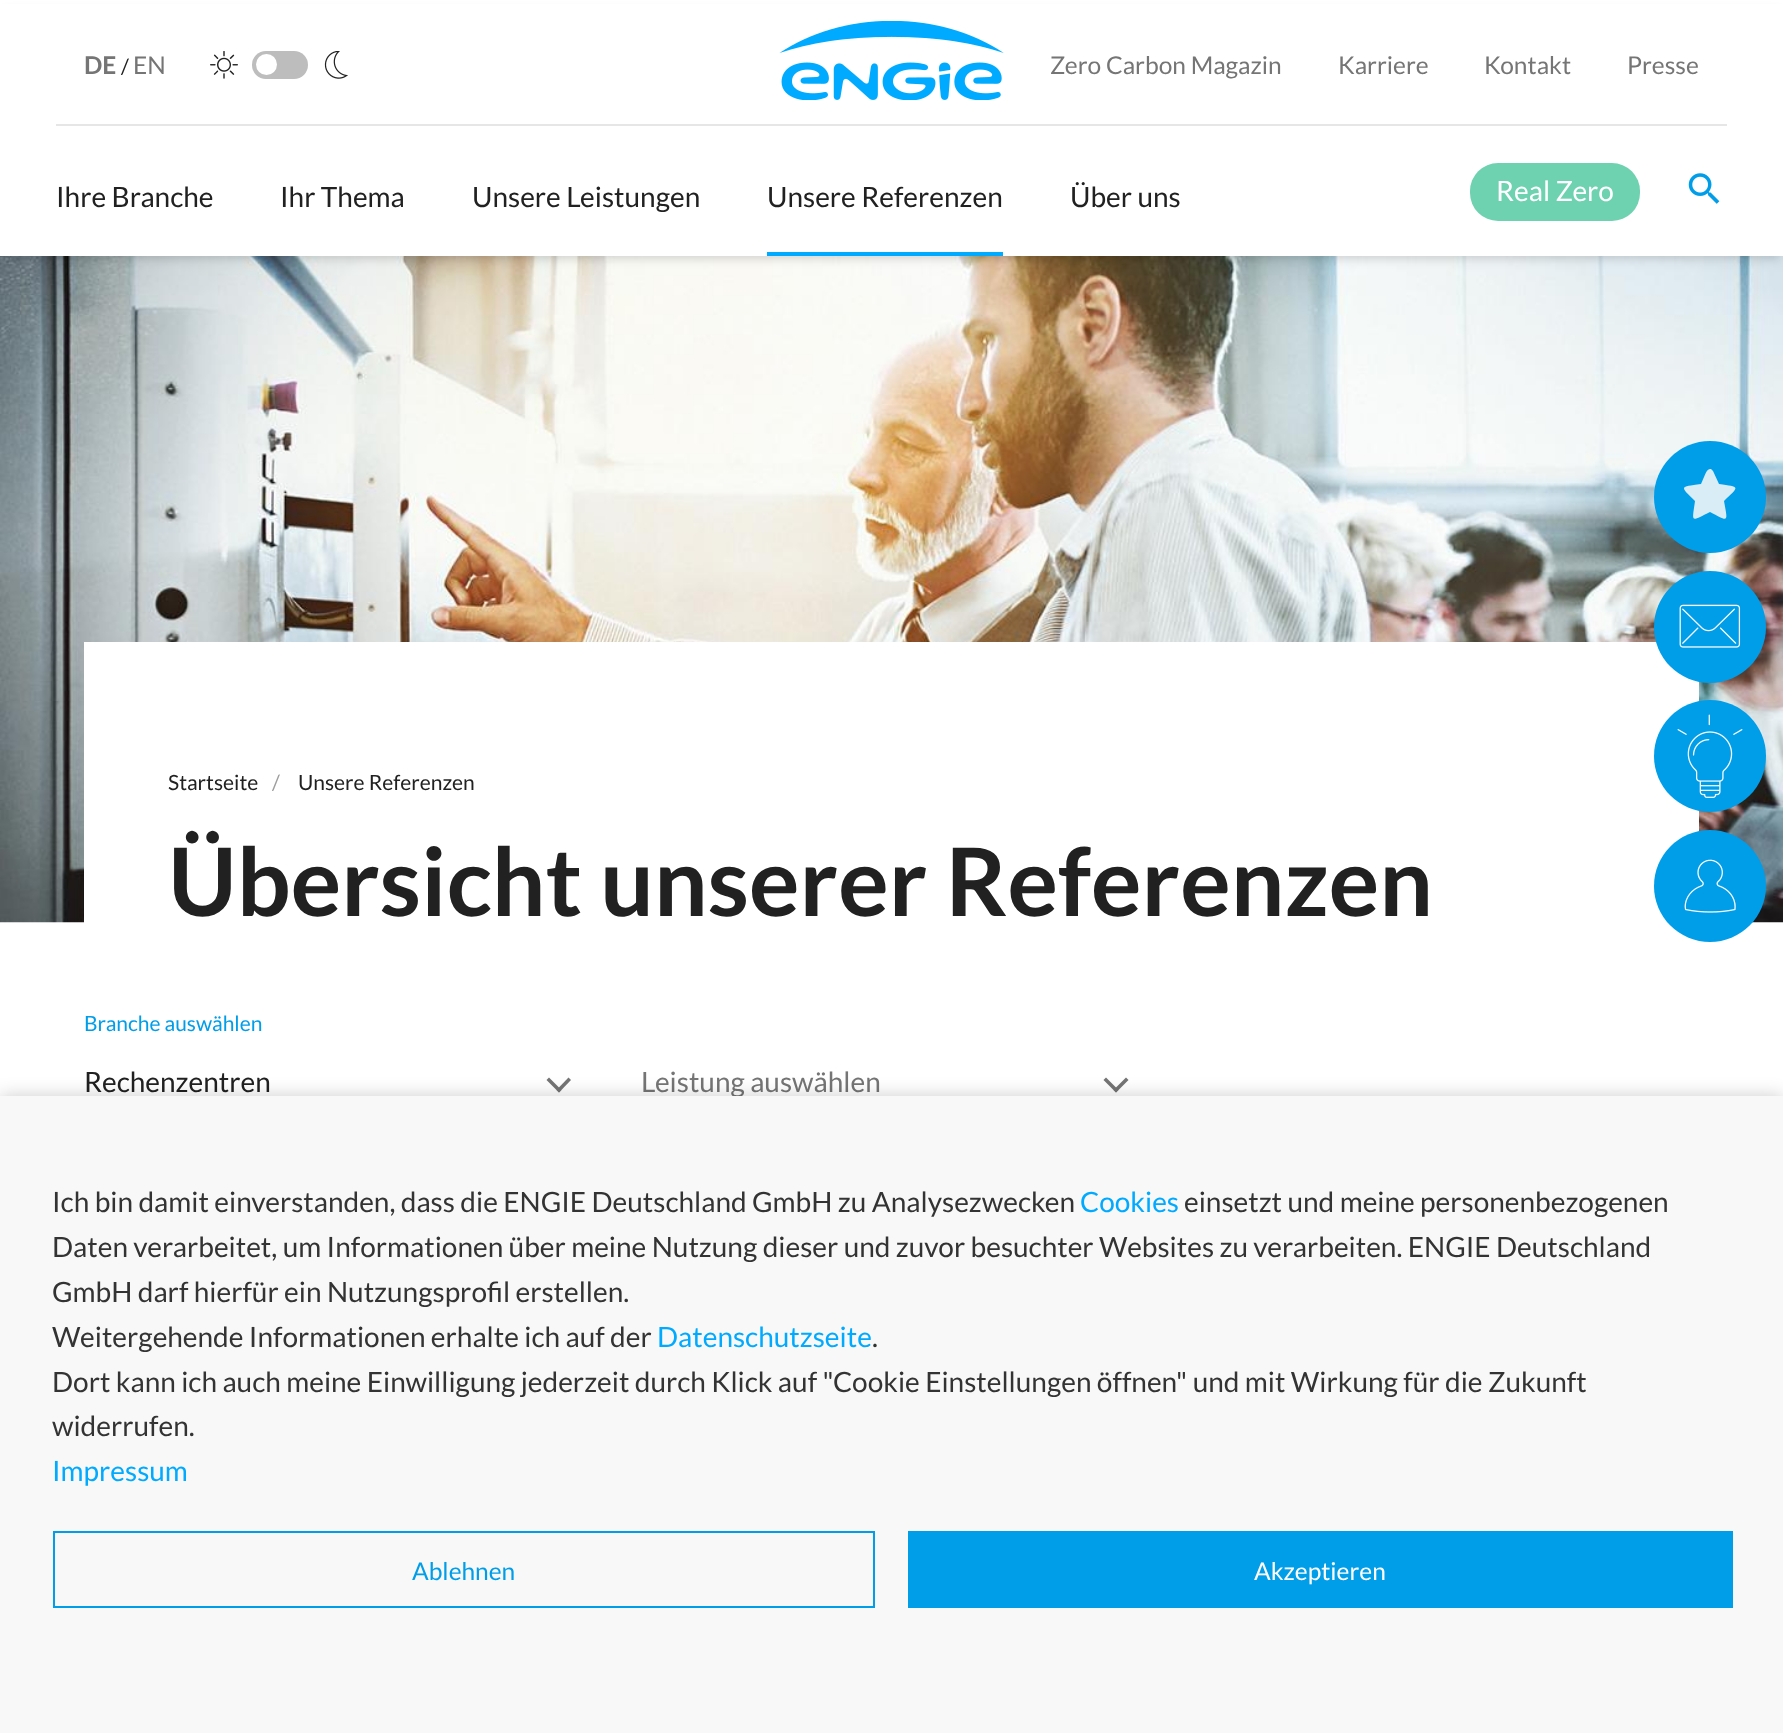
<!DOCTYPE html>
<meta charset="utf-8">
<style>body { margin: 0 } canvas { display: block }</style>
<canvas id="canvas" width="1783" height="1733"></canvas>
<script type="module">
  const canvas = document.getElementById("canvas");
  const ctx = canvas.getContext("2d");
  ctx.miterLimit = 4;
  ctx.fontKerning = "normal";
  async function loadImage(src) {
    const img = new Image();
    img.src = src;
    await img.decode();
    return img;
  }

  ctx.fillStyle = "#ffffff";
  ctx.fillRect(0, 0, 1783, 1733);
  ctx.drawImage(await loadImage("img5.png"), 0, 256, 1783, 667);
  ctx.fillStyle = "rgba(0, 0, 0, 0.15)";
  ctx.filter = "blur(5px)";
  ctx.beginPath();
  ctx.rect(4, 11, 1776, 248);
  ctx.fill();
  ctx.filter = "none";
  ctx.fillStyle = "#ffffff";
  ctx.fillRect(0, 4, 1783, 252);
  ctx.fillStyle = "#e6e6e6";
  ctx.fillRect(56, 124, 1671, 2);
  ctx.font = "bold 24.5px Lato";
  ctx.fillStyle = "#757575";
  ctx.fillText("DE", 84, 74);
  ctx.font = "21px Lato";
  ctx.fillStyle = "#212121";
  ctx.fillText("/", 121, 74);
  ctx.font = "24.5px Lato";
  ctx.fillStyle = "#757575";
  ctx.fillText("EN", 133, 74);
  ctx.drawImage(await loadImage("img1.png"), 210, 51, 28, 28);
  ctx.fillStyle = "#bdbdbd";
  ctx.beginPath();
  ctx.roundRect(252, 51, 56, 28, 14);
  ctx.fill();
  ctx.fillStyle = "#ffffff";
  ctx.beginPath();
  ctx.arc(266.5, 64.5, 10.5, 0, Math.PI * 2);
  ctx.fill();
  ctx.drawImage(await loadImage("img2.png"), 324, 51, 24, 28);
  ctx.drawImage(await loadImage("img3.png"), 779, 21, 225, 79);
  ctx.fillStyle = "#757575";
  ctx.fillText("Zero Carbon Magazin", 1050, 74);
  ctx.fillText("Karriere", 1338, 74);
  ctx.fillText("Kontakt", 1484, 74);
  ctx.fillText("Presse", 1627, 74);
  ctx.font = "28px Lato";
  ctx.fillStyle = "#212121";
  ctx.fillText("Ihre Branche", 56, 207);
  ctx.fillText("Ihr Thema", 280, 207);
  ctx.fillText("Unsere Leistungen", 472, 207);
  ctx.fillStyle = "#00aaff";
  ctx.fillRect(767, 252, 236, 4);
  ctx.fillStyle = "#212121";
  ctx.fillText("Unsere Referenzen", 767, 207);
  ctx.fillText("Über uns", 1070, 207);
  ctx.fillStyle = "#6ed2b1";
  ctx.beginPath();
  ctx.roundRect(1470, 163, 170, 58, 28);
  ctx.fill();
  ctx.fillStyle = "#ffffff";
  ctx.fillText("Real Zero", 1496, 201);
  ctx.drawImage(await loadImage("img4.png"), 1688, 173, 32, 31);
  ctx.fillRect(84, 642, 1615, 281);
  ctx.font = "21px Lato";
  ctx.fillStyle = "#212121";
  ctx.fillText("Startseite", 168, 790);
  ctx.fillStyle = "#9e9e9e";
  ctx.fillText("/", 272, 790);
  ctx.fillStyle = "#212121";
  ctx.fillText("Unsere Referenzen", 298, 790);
  ctx.font = "bold 94.5px Lato";
  ctx.fillText("Übersicht unserer Referenzen", 168, 916);
  ctx.font = "21px Lato";
  ctx.fillStyle = "#009de9";
  ctx.fillText("Branche auswählen", 84, 1031);
  ctx.font = "28px Lato";
  ctx.fillStyle = "#212121";
  ctx.fillText("Rechenzentren", 84, 1092);
  ctx.fillStyle = "#757575";
  ctx.beginPath();
  ctx.moveTo(568.5, 1077.5);
  ctx.lineTo(571, 1080);
  ctx.lineTo(559, 1092.5);
  ctx.lineTo(556.5, 1090);
  ctx.closePath();
  ctx.fill();
  ctx.beginPath();
  ctx.moveTo(549, 1077.5);
  ctx.lineTo(561.5, 1090);
  ctx.lineTo(559, 1092.5);
  ctx.lineTo(546.5, 1080);
  ctx.closePath();
  ctx.fill();
  ctx.fillText("Leistung auswählen", 641, 1092);
  ctx.beginPath();
  ctx.moveTo(1126, 1077.5);
  ctx.lineTo(1128.5, 1080);
  ctx.lineTo(1116, 1092.5);
  ctx.lineTo(1113.5, 1090);
  ctx.closePath();
  ctx.fill();
  ctx.beginPath();
  ctx.moveTo(1106, 1077.5);
  ctx.lineTo(1118.5, 1090);
  ctx.lineTo(1116, 1092.5);
  ctx.lineTo(1103.5, 1080);
  ctx.closePath();
  ctx.fill();
  ctx.fillStyle = "#009de9";
  ctx.beginPath();
  ctx.arc(1710, 497, 56, 0, Math.PI * 2);
  ctx.fill();
  ctx.fillStyle = "#d9edf7";
  ctx.beginPath();
  ctx.moveTo(1713, 471);
  ctx.lineTo(1711, 469);
  ctx.bezierCurveTo(1707, 468, 1705, 475, 1704, 477);
  ctx.lineTo(1701, 484);
  ctx.bezierCurveTo(1679, 487, 1680, 486, 1695, 501);
  ctx.bezierCurveTo(1692, 523, 1690, 522, 1710, 512);
  ctx.bezierCurveTo(1729, 522, 1728, 523, 1724, 501);
  ctx.bezierCurveTo(1740, 486, 1740, 487, 1719, 484);
  ctx.closePath();
  ctx.fill();
  ctx.fillStyle = "#009de9";
  ctx.beginPath();
  ctx.arc(1710, 627, 56, 0, Math.PI * 2);
  ctx.fill();
  ctx.drawImage(await loadImage("img6.png"), 1679, 604, 62, 44);
  ctx.beginPath();
  ctx.arc(1710, 756, 56, 0, Math.PI * 2);
  ctx.fill();
  ctx.drawImage(await loadImage("img7.png"), 1677, 714, 66, 84);
  ctx.beginPath();
  ctx.arc(1710, 886, 56, 0, Math.PI * 2);
  ctx.fill();
  ctx.drawImage(await loadImage("img8.png"), 1684, 859, 52, 54);
  ctx.fillStyle = "rgba(0, 0, 0, 0.2)";
  ctx.filter = "blur(9px)";
  ctx.beginPath();
  ctx.rect(0, 1096, 1783, 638);
  ctx.fill();
  ctx.filter = "none";
  ctx.fillStyle = "#f8f8f8";
  ctx.fillRect(0, 1096, 1783, 637);
  ctx.fillStyle = "#333333";
  ctx.fillText("Ich bin damit einverstanden, dass die ENGIE Deutschland GmbH zu Analysezwecken", 52, 1212);
  ctx.fillStyle = "#00aaff";
  ctx.fillText("Cookies", 1080, 1212);
  ctx.fillStyle = "#333333";
  ctx.fillText("einsetzt und meine personenbezogenen", 1184, 1212);
  ctx.fillText("Daten verarbeitet, um Informationen über meine Nutzung dieser und zuvor besuchter Websites zu verarbeiten. ENGIE Deutschland", 52, 1257);
  ctx.fillText("GmbH darf hierfür ein Nutzungsprofil erstellen.", 52, 1302);
  ctx.fillText("Weitergehende Informationen erhalte ich auf der", 52, 1347);
  ctx.fillStyle = "#00aaff";
  ctx.fillText("Datenschutzseite", 657, 1347);
  ctx.fillStyle = "#333333";
  ctx.fillText(".", 872, 1347);
  ctx.fillText("Dort kann ich auch meine Einwilligung jederzeit durch Klick auf \"Cookie Einstellungen öffnen\" und mit Wirkung für die Zukunft", 52, 1392);
  ctx.fillText("widerrufen.", 52, 1436);
  ctx.fillStyle = "#00aaff";
  ctx.fillText("Impressum", 52, 1481);
  ctx.strokeStyle = "#009de9";
  ctx.lineWidth = 2;
  ctx.strokeRect(54, 1532, 820, 75);
  ctx.font = "24.5px Lato";
  ctx.fillStyle = "#009de9";
  ctx.fillText("Ablehnen", 412, 1580);
  ctx.fillRect(908, 1531, 825, 77);
  ctx.fillStyle = "#ffffff";
  ctx.fillText("Akzeptieren", 1254, 1580);
</script>
